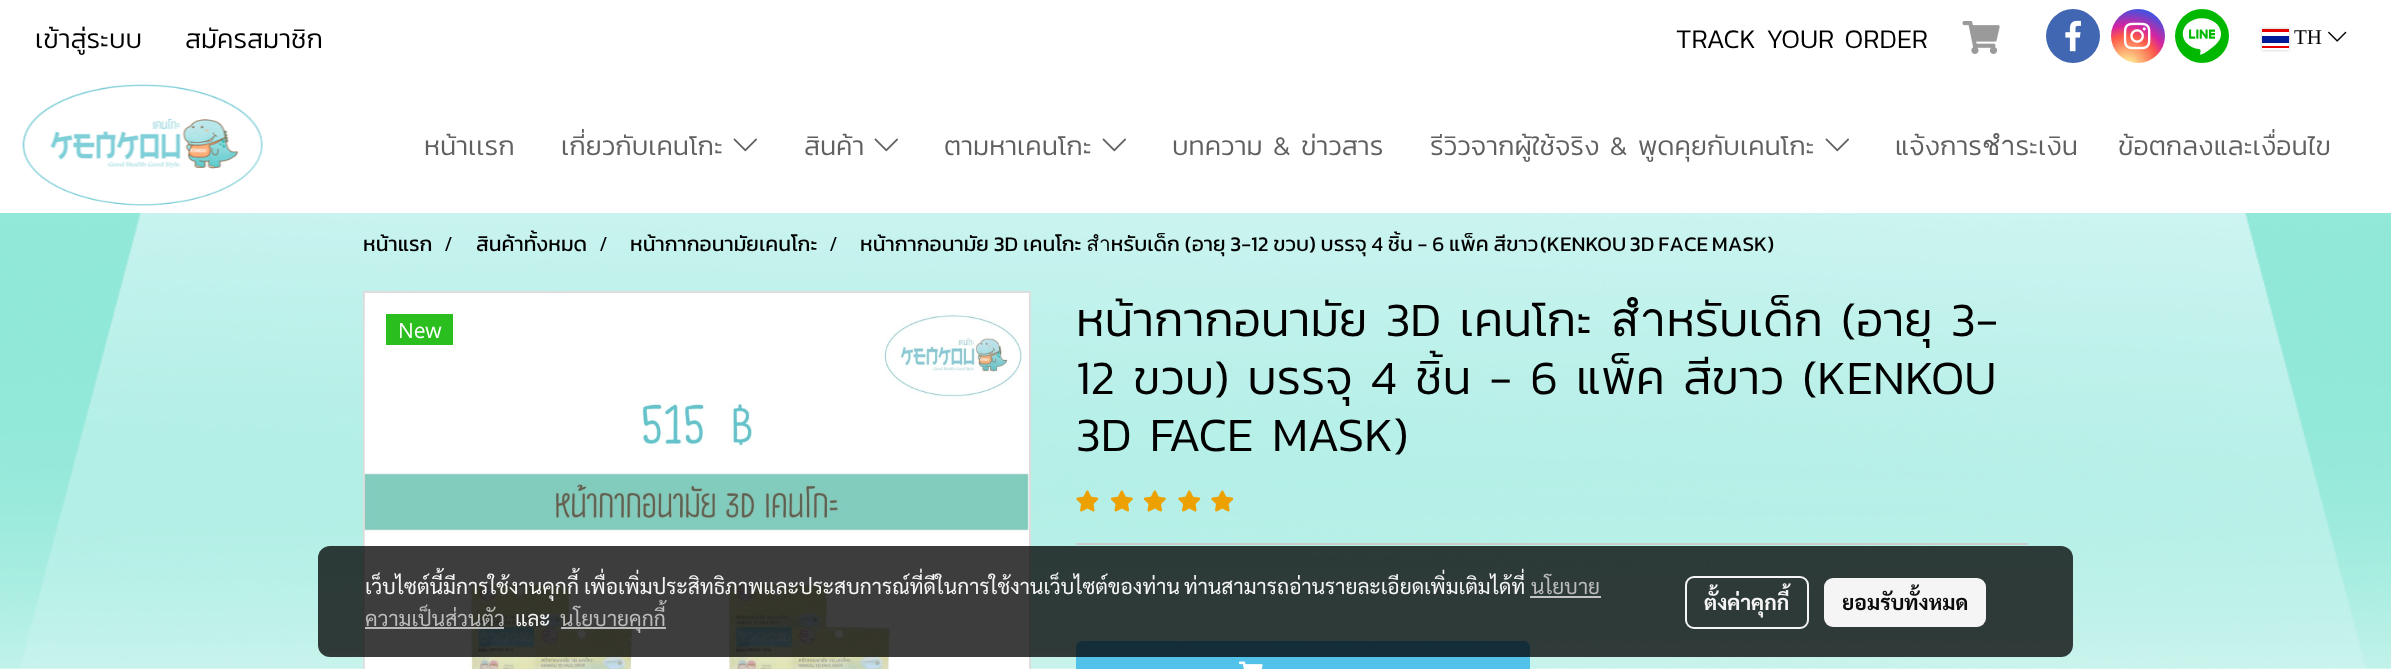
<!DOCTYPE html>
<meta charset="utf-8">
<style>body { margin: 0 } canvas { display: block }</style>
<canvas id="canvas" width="2391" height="669"></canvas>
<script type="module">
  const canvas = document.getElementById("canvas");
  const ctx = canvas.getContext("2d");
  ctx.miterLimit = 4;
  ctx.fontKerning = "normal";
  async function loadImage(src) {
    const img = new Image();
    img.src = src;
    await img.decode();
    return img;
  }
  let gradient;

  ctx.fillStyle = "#ffffff";
  ctx.fillRect(0, 0, 2391, 669);
  ctx.drawImage(await loadImage("img1.png"), 0, 213, 2391, 456);
  ctx.font = "300 27px Kanit";
  ctx.fillStyle = "#000000";
  ctx.fillText("เข้าสู่ระบบ", 35, 48);
  ctx.fillText("สมัครสมาชิก", 185, 48);
  ctx.fillText("TRACK YOUR ORDER", 1676, 48);
  ctx.drawImage(await loadImage("img2.png"), 1962, 21, 38, 33);
  ctx.fillStyle = "#4267b2";
  ctx.beginPath();
  ctx.arc(2073, 36, 27, 0, Math.PI * 2);
  ctx.fill();
  ctx.drawImage(await loadImage("img3.png"), 2065, 20, 16, 32);
  gradient = ctx.createRadialGradient(2127, 67, 0, 2127, 67, 69);
  gradient.addColorStop(0, "#fdf497");
  gradient.addColorStop(0.05, "#fdf497");
  gradient.addColorStop(0.45, "#fd5949");
  gradient.addColorStop(0.6, "#d6249f");
  gradient.addColorStop(0.9, "#285aeb");
  ctx.fillStyle = gradient;
  ctx.beginPath();
  ctx.arc(2138, 36, 27, 0, Math.PI * 2);
  ctx.fill();
  ctx.drawImage(await loadImage("img4.png"), 2123, 22, 28, 28);
  ctx.fillStyle = "#00b800";
  ctx.beginPath();
  ctx.arc(2202, 36, 27, 0, Math.PI * 2);
  ctx.fill();
  ctx.drawImage(await loadImage("img5.png"), 2182, 9, 39, 54);
  ctx.save();
  ctx.beginPath();
  ctx.moveTo(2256, 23);
  ctx.lineTo(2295, 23);
  ctx.lineTo(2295, 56);
  ctx.lineTo(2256, 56);
  ctx.closePath();
  ctx.moveTo(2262, 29);
  ctx.lineTo(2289, 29);
  ctx.lineTo(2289, 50);
  ctx.lineTo(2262, 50);
  ctx.closePath();
  ctx.clip("evenodd");
  ctx.fillStyle = "rgba(0, 0, 0, 0.25)";
  ctx.filter = "blur(1.5px)";
  ctx.beginPath();
  ctx.rect(2262, 29, 27, 21);
  ctx.fill();
  ctx.filter = "none";
  ctx.restore();
  ctx.fillStyle = "#001b9a";
  ctx.fillRect(2262, 36, 27, 7);
  ctx.fillStyle = "#e70000";
  ctx.fillRect(2262, 29, 27, 3);
  ctx.fillRect(2262, 46, 27, 2);
  ctx.font = "21px Liberation Serif";
  ctx.fillStyle = "#000000";
  ctx.fillText("TH", 2294, 44);
  ctx.drawImage(await loadImage("img6.png"), 2328, 31, 19, 11);
  ctx.drawImage(await loadImage("img7.png"), 22, 84, 241, 122);
  ctx.font = "300 27px Kanit";
  ctx.fillStyle = "#606060";
  ctx.fillText("หน้าเเรก", 424, 155);
  ctx.fillText("เกี่ยวกับเคนโกะ", 561, 155);
  ctx.drawImage(await loadImage("img8.png"), 733, 138, 24, 14);
  ctx.fillText("สินค้า", 804, 155);
  ctx.drawImage(await loadImage("img8.png"), 874, 138, 24, 14);
  ctx.fillText("ตามหาเคนโกะ", 944, 155);
  ctx.drawImage(await loadImage("img8.png"), 1102, 138, 24, 14);
  ctx.fillText("บทความ & ข่าวสาร", 1172, 155);
  ctx.fillText("รีวิวจากผู้ใช้จริง & พูดคุยกับเคนโกะ", 1430, 155);
  ctx.drawImage(await loadImage("img8.png"), 1825, 138, 24, 14);
  ctx.fillText("แจ้งการชำระเงิน", 1895, 155);
  ctx.fillText("ข้อตกลงและเงื่อนไข", 2118, 155);
  ctx.font = "21px Kanit";
  ctx.fillStyle = "#000000";
  ctx.fillText("หน้าแรก", 363, 251);
  ctx.font = "300 21px Kanit";
  ctx.fillText("/", 444, 251);
  ctx.font = "21px Kanit";
  ctx.fillText("สินค้าทั้งหมด", 476, 251);
  ctx.font = "300 21px Kanit";
  ctx.fillText("/", 599, 251);
  ctx.font = "21px Kanit";
  ctx.fillText("หน้ากากอนามัยเคนโกะ", 630, 251);
  ctx.font = "300 21px Kanit";
  ctx.fillText("/", 829, 251);
  ctx.font = "21px Kanit";
  ctx.fillText("หน้ากากอนามัย 3D เคนโกะ สำหรับเด็ก (อายุ 3-12 ขวบ) บรรจุ 4 ชิ้น - 6 แพ็ค สีขาว", 860, 251);
  ctx.wordSpacing = "-1px";
  ctx.fillText("(KENKOU 3D FACE MASK)", 1540, 251);
  ctx.fillStyle = "#ffffff";
  ctx.fillRect(365, 293, 664, 6);
  ctx.strokeStyle = "#dddddd";
  ctx.lineWidth = 2;
  ctx.strokeRect(364, 292, 666, 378);
  ctx.drawImage(await loadImage("img9.png"), 364, 298, 665, 371);
  ctx.fillStyle = "#2bbe1f";
  ctx.fillRect(386, 314, 67, 31);
  ctx.wordSpacing = "0px";
  ctx.font = "21px Open Sans";
  ctx.fillStyle = "#ffffff";
  ctx.fillText("New", 398, 338);
  ctx.font = "300 48px Kanit";
  ctx.fillStyle = "#000000";
  ctx.fillText("หน้ากากอนามัย 3D เคนโกะ สำหรับเด็ก (อายุ 3-", 1076, 336);
  ctx.fillText("12 ขวบ) บรรจุ 4 ชิ้น - 6 แพ็ค สีขาว (KENKOU", 1076, 394);
  ctx.fillText("3D FACE MASK)", 1076, 451);
  ctx.drawImage(await loadImage("img10.png"), 1076, 490, 23, 22);
  ctx.drawImage(await loadImage("img11.png"), 1110, 490, 23, 22);
  ctx.drawImage(await loadImage("img12.png"), 1143, 490, 23, 22);
  ctx.drawImage(await loadImage("img13.png"), 1178, 490, 23, 22);
  ctx.drawImage(await loadImage("img14.png"), 1211, 490, 23, 22);
  ctx.fillStyle = "#cccccc";
  ctx.fillRect(1076, 543, 952, 2);
  ctx.fillStyle = "#52c2ea";
  ctx.beginPath();
  ctx.roundRect(1076, 641, 454, 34, 6);
  ctx.fill();
  ctx.drawImage(await loadImage("img15.png"), 1239, 661, 24, 8);
  ctx.fillStyle = "rgba(0, 0, 0, 0.76)";
  ctx.beginPath();
  ctx.roundRect(318, 546, 1755, 111, 12);
  ctx.fill();
  ctx.font = "21px Sarabun";
  ctx.fillStyle = "#f5f5f5";
  ctx.fillText("เว็บไซต์นี้มีการใช้งานคุกกี้ เพื่อเพิ่มประสิทธิภาพและประสบการณ์ที่ดีในการใช้งานเว็บไซต์ของท่าน", 365, 594);
  ctx.fillText("ท่านสามารถอ่านรายละเอียดเพิ่มเติมได้ที่", 1184, 594);
  ctx.fillStyle = "#bbbbbb";
  ctx.fillText("นโยบาย", 1531, 594);
  ctx.fillStyle = "#c2c4c4";
  ctx.fillRect(1530, 596, 71, 2);
  ctx.fillStyle = "#bbbbbb";
  ctx.fillText("ความเป็นส่วนตัว", 365, 626);
  ctx.fillStyle = "rgba(194, 194, 194, 0.95)";
  ctx.fillRect(365, 627, 139, 2);
  ctx.fillStyle = "#f5f5f5";
  ctx.fillText("และ", 515, 626);
  ctx.fillStyle = "rgba(194, 194, 194, 0.95)";
  ctx.fillRect(561, 627, 105, 2);
  ctx.fillStyle = "#bbbbbb";
  ctx.fillText("นโยบายคุกกี้", 560, 626);
  ctx.beginPath();
  ctx.roundRect(1686, 577, 122, 51, 8);
  ctx.strokeStyle = "#f5f5f5";
  ctx.stroke();
  ctx.font = "bold 21px Sarabun";
  ctx.fillStyle = "#f5f5f5";
  ctx.fillText("ตั้งค่าคุกกี้", 1704, 610);
  ctx.beginPath();
  ctx.roundRect(1824, 578, 162, 49, 9);
  ctx.fill();
  ctx.fillStyle = "#0c0c0c";
  ctx.fillText("ยอมรับทั้งหมด", 1842, 610);
</script>
